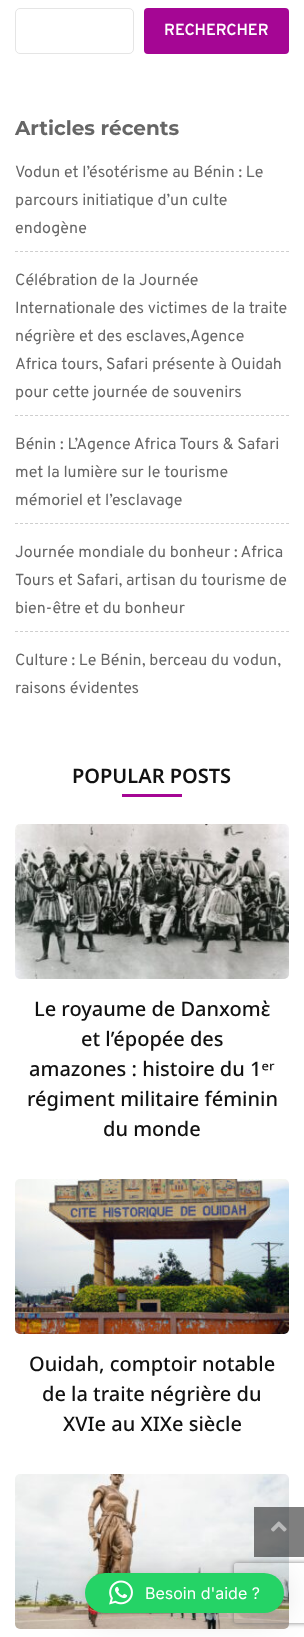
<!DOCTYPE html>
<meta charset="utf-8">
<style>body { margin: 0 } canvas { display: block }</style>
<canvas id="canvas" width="304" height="1637"></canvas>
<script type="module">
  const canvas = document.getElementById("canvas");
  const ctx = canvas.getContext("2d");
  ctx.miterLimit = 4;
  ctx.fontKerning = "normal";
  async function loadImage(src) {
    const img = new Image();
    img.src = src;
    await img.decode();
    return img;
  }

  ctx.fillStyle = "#ffffff";
  ctx.fillRect(0, 0, 304, 1637);
  ctx.beginPath();
  ctx.roundRect(15.5, 8.5, 118, 45, 4.5);
  ctx.strokeStyle = "#e5e5e5";
  ctx.stroke();
  ctx.fillStyle = "#a50694";
  ctx.beginPath();
  ctx.roundRect(144, 8, 145, 46, 4);
  ctx.fill();
  ctx.font = "600 16px Overpass";
  ctx.fillStyle = "#ffffff";
  ctx.fillText("RECHERCHER", 164, 35);
  ctx.font = "100 20px Montserrat";
  ctx.fillStyle = "#666666";
  ctx.fillText("Articles récents", 15, 135);
  ctx.beginPath();
  ctx.moveTo(15, 251.5);
  ctx.lineTo(289, 251.5);
  ctx.strokeStyle = "#cecece";
  ctx.setLineDash([3, 2.02]);
  ctx.stroke();
  ctx.font = "16px Overpass";
  ctx.fillText("Vodun et l’ésotérisme au Bénin : Le", 15, 177);
  ctx.fillText("parcours initiatique d’un culte", 15, 205);
  ctx.fillText("endogène", 15, 233);
  ctx.beginPath();
  ctx.moveTo(15, 415.5);
  ctx.lineTo(289, 415.5);
  ctx.stroke();
  ctx.fillText("Célébration de la Journée", 15, 285);
  ctx.fillText("Internationale des victimes de la traite", 15, 313);
  ctx.fillText("négrière et des esclaves,Agence", 15, 341);
  ctx.fillText("Africa tours, Safari présente à Ouidah", 15, 369);
  ctx.fillText("pour cette journée de souvenirs", 15, 397);
  ctx.beginPath();
  ctx.moveTo(15, 523.5);
  ctx.lineTo(289, 523.5);
  ctx.stroke();
  ctx.fillText("Bénin : L’Agence Africa Tours & Safari", 15, 449);
  ctx.fillText("met la lumière sur le tourisme", 15, 477);
  ctx.fillText("mémoriel et l’esclavage", 15, 505);
  ctx.beginPath();
  ctx.moveTo(15, 631.5);
  ctx.lineTo(289, 631.5);
  ctx.stroke();
  ctx.fillText("Journée mondiale du bonheur : Africa", 15, 557);
  ctx.fillText("Tours et Safari, artisan du tourisme de", 15, 585);
  ctx.fillText("bien-être et du bonheur", 15, 613);
  ctx.fillText("Culture : Le Bénin, berceau du vodun,", 15, 665);
  ctx.fillText("raisons évidentes", 15, 693);
  ctx.font = "600 20px Noto Sans";
  ctx.fillStyle = "#111111";
  ctx.fillText("POPULAR POSTS", 72, 783);
  ctx.fillStyle = "#a50694";
  ctx.fillRect(122, 794, 60, 3);
  ctx.drawImage(await loadImage("img1.png"), 15, 824, 274, 155);
  ctx.font = "500 20px Noto Sans";
  ctx.fillStyle = "#111111";
  ctx.fillText("Le royaume de Danxomὲ", 34, 1016);
  ctx.fillText("et l’épopée des", 81, 1046);
  ctx.fillText("amazones : histoire du 1ᵉʳ", 29, 1076);
  ctx.fillText("régiment militaire féminin", 27, 1106);
  ctx.fillText("du monde", 103, 1136);
  ctx.drawImage(await loadImage("img2.png"), 15, 1179, 274, 155);
  ctx.fillText("Ouidah, comptoir notable", 29, 1371);
  ctx.fillText("de la traite négrière du", 42, 1401);
  ctx.fillText("XVIe au XIXe siècle", 63, 1431);
  ctx.drawImage(await loadImage("img3.png"), 15, 1474, 274, 155);
  ctx.save();
  ctx.beginPath();
  ctx.moveTo(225, 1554);
  ctx.lineTo(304, 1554);
  ctx.lineTo(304, 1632);
  ctx.lineTo(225, 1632);
  ctx.closePath();
  ctx.moveTo(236, 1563);
  ctx.lineTo(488, 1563);
  ctx.bezierCurveTo(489, 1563, 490, 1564, 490, 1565);
  ctx.lineTo(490, 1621);
  ctx.bezierCurveTo(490, 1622, 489, 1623, 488, 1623);
  ctx.lineTo(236, 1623);
  ctx.bezierCurveTo(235, 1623, 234, 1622, 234, 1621);
  ctx.lineTo(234, 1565);
  ctx.bezierCurveTo(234, 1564, 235, 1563, 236, 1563);
  ctx.closePath();
  ctx.clip("evenodd");
  ctx.fillStyle = "#808080";
  ctx.filter = "blur(2.5px)";
  ctx.beginPath();
  ctx.roundRect(234, 1563, 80, 60, 2);
  ctx.fill();
  ctx.filter = "none";
  ctx.restore();
  ctx.fillStyle = "rgba(0, 0, 0, 0.5)";
  ctx.fillRect(254, 1507, 50, 50);
  ctx.drawImage(await loadImage("img4.png"), 271, 1521, 16, 11);
  ctx.fillStyle = "rgba(0, 0, 0, 0.16)";
  ctx.filter = "blur(16px)";
  ctx.beginPath();
  ctx.roundRect(85, 1575, 199, 40, 20);
  ctx.fill();
  ctx.filter = "none";
  ctx.fillStyle = "rgba(0, 0, 0, 0.06)";
  ctx.filter = "blur(3px)";
  ctx.beginPath();
  ctx.roundRect(85, 1574, 199, 40, 20);
  ctx.fill();
  ctx.filter = "none";
  ctx.fillStyle = "#25d366";
  ctx.beginPath();
  ctx.roundRect(85, 1573, 199, 40, 20);
  ctx.fill();
  ctx.drawImage(await loadImage("img5.png"), 109, 1580, 24, 25);
  ctx.font = "16px Inter";
  ctx.fillStyle = "#ffffff";
  ctx.fillText("Besoin d'aide ?", 145, 1599);
</script>
